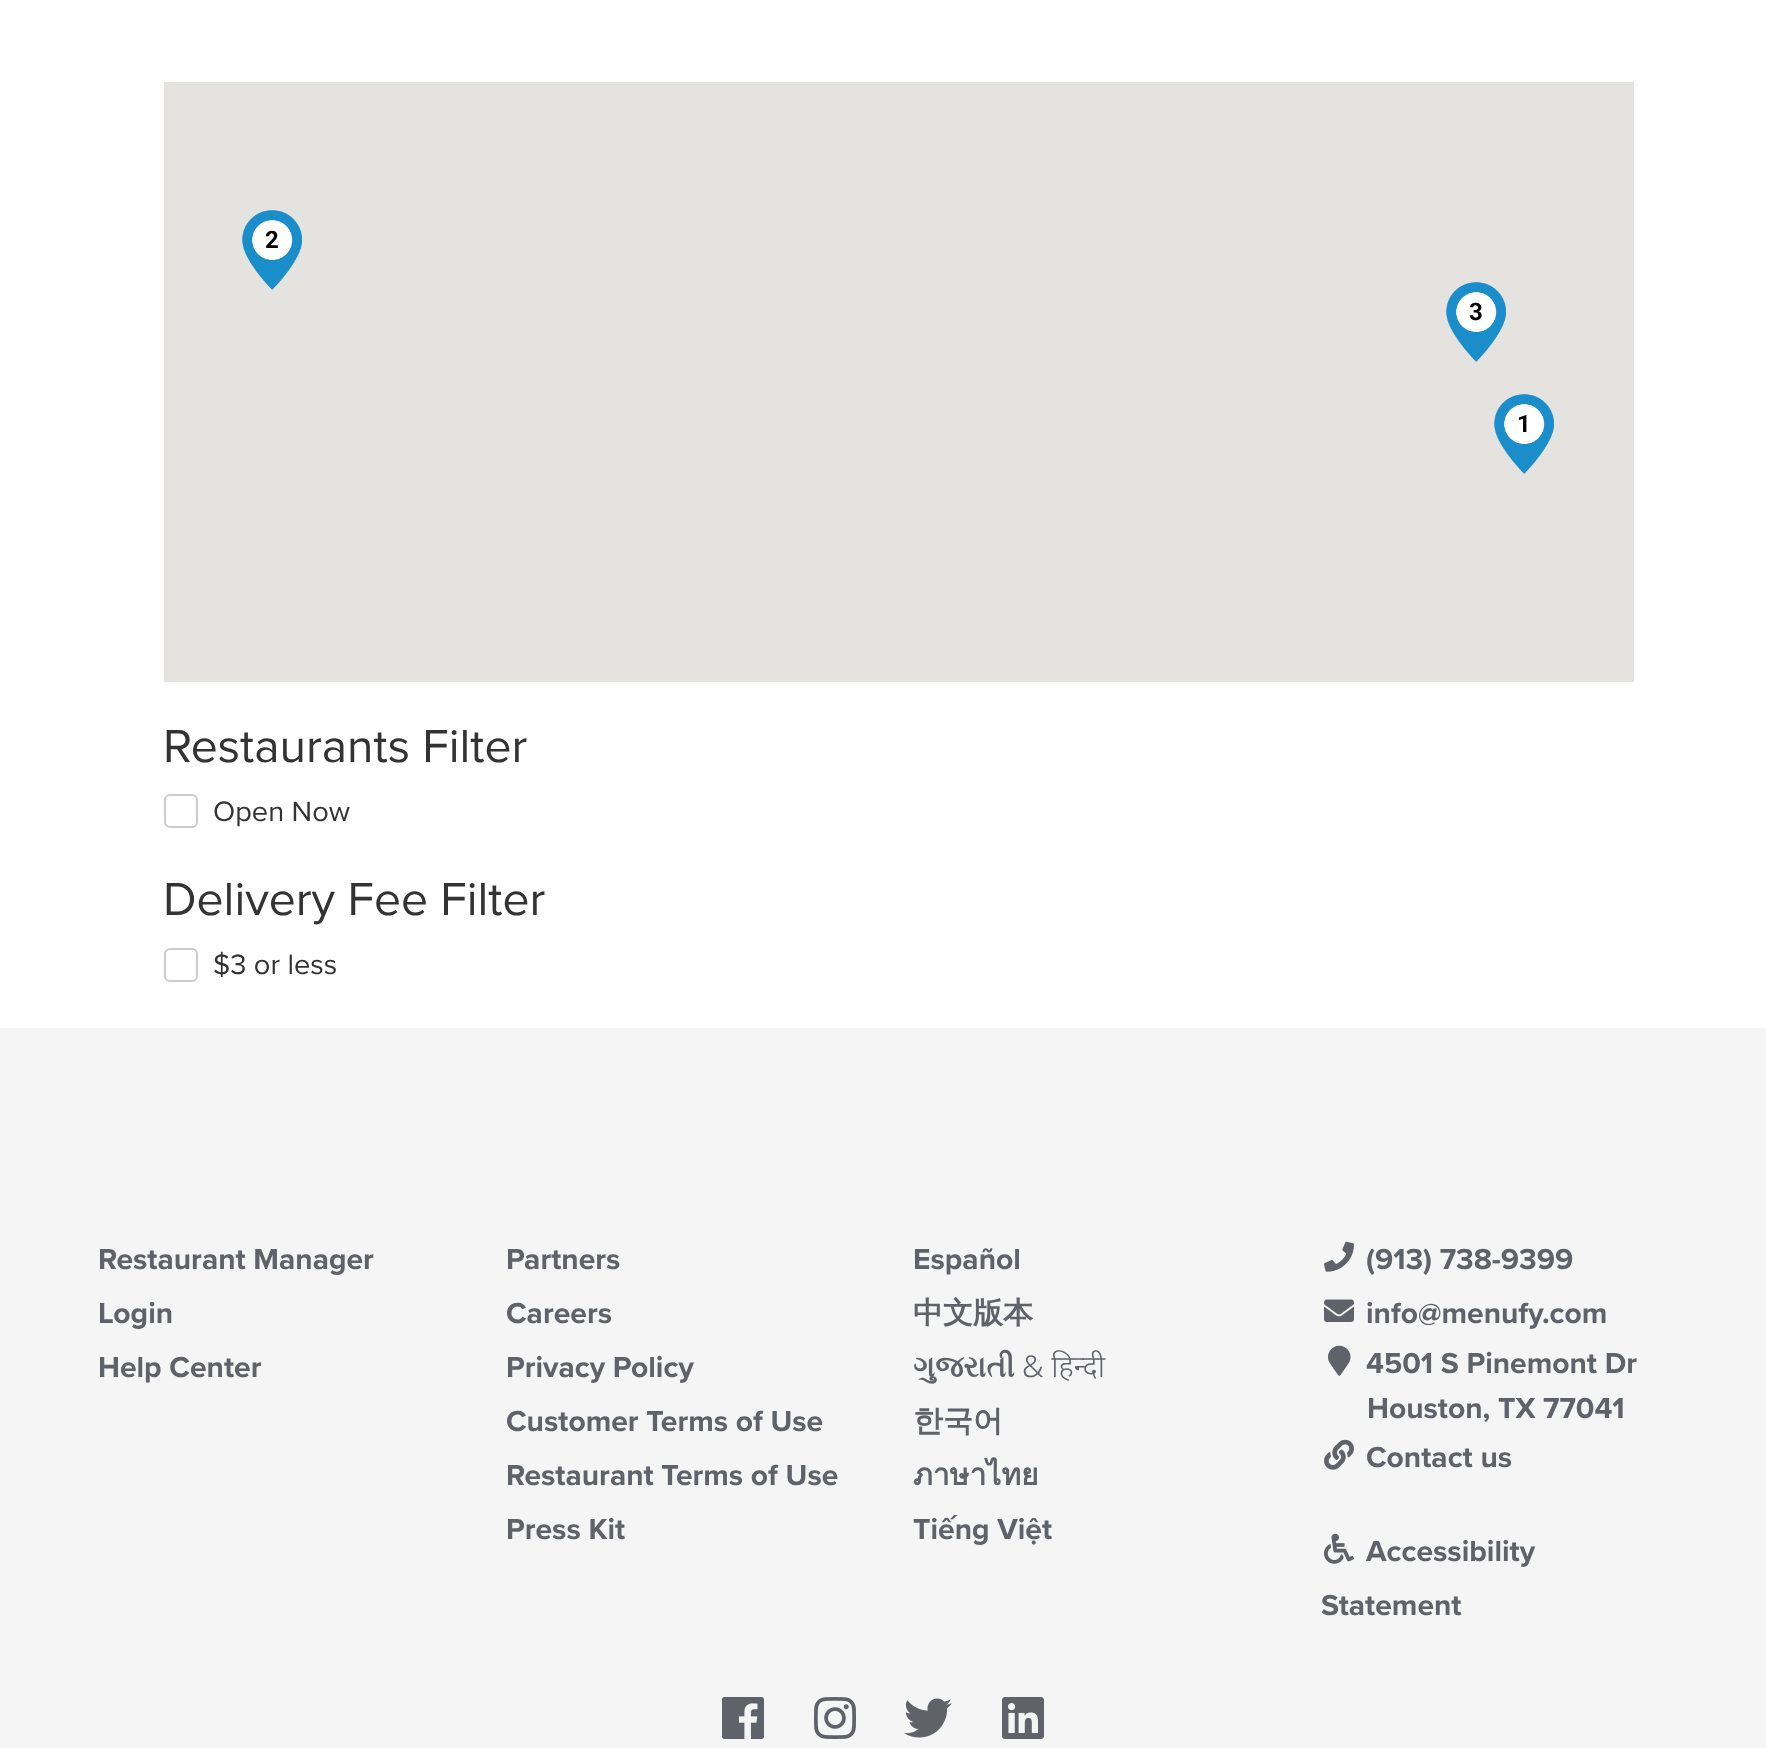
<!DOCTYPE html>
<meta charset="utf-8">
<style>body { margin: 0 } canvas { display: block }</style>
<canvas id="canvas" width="1766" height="1748"></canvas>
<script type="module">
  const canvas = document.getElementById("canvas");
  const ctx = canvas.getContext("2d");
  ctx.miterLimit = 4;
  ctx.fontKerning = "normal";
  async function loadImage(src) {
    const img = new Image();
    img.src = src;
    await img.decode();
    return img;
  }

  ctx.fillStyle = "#ffffff";
  ctx.fillRect(0, 0, 1766, 1748);
  ctx.fillStyle = "#e5e3df";
  ctx.fillRect(164, 82, 1470, 600);
  ctx.drawImage(await loadImage("img1.png"), 242, 210, 60, 80);
  ctx.font = "bold 24px Roboto";
  ctx.fillStyle = "#000000";
  ctx.fillText("2", 265, 248);
  ctx.drawImage(await loadImage("img1.png"), 1446, 282, 60, 80);
  ctx.fillText("3", 1469, 320);
  ctx.drawImage(await loadImage("img1.png"), 1494, 394, 60, 80);
  ctx.fillText("1", 1517, 432);
  ctx.font = "48px Proxima Nova";
  ctx.fillStyle = "#333333";
  ctx.fillText("Restaurants Filter", 163, 762);
  ctx.beginPath();
  ctx.roundRect(165, 795, 32, 32, 5);
  ctx.strokeStyle = "#cccccc";
  ctx.lineWidth = 2;
  ctx.stroke();
  ctx.font = "29px Proxima Nova";
  ctx.fillText("Open Now", 213, 821);
  ctx.font = "48px Proxima Nova";
  ctx.fillText("Delivery Fee Filter", 163, 915);
  ctx.beginPath();
  ctx.roundRect(165, 949, 32, 32, 5);
  ctx.stroke();
  ctx.font = "29px Proxima Nova";
  ctx.fillText("$3 or less", 213, 974);
  ctx.fillStyle = "#f5f5f5";
  ctx.fillRect(0, 1028, 1766, 720);
  ctx.font = "bold 30px Proxima Nova";
  ctx.fillStyle = "#5f6369";
  ctx.fillText("Restaurant Manager", 98, 1269);
  ctx.fillText("Login", 98, 1323);
  ctx.fillText("Help Center", 98, 1377);
  ctx.fillText("Partners", 506, 1269);
  ctx.fillText("Careers", 506, 1323);
  ctx.fillText("Privacy Policy", 506, 1377);
  ctx.fillText("Customer Terms of Use", 506, 1431);
  ctx.fillText("Restaurant Terms of Use", 506, 1485);
  ctx.fillText("Press Kit", 506, 1539);
  ctx.fillText("Español", 913, 1269);
  ctx.font = "bold 30px WenQuanYi Zen Hei";
  ctx.fillText("中文版本", 913, 1323);
  ctx.font = "bold 30px FreeSerif";
  ctx.fillText("ગુજરાતી", 913, 1377);
  ctx.font = "300 30px Noto Sans";
  ctx.fillText("& हिन्दी", 1022, 1377);
  ctx.font = "bold 30px WenQuanYi Zen Hei";
  ctx.fillText("한국어", 913, 1431);
  ctx.font = "bold 30px Loma";
  ctx.fillText("ภาษาไทย", 913, 1485);
  ctx.font = "bold 30px Proxima Nova";
  ctx.fillText("Tiếng Việt", 913, 1539);
  ctx.drawImage(await loadImage("img2.png"), 1324, 1241, 30, 31);
  ctx.fillText("(913) 738-9399", 1366, 1269);
  ctx.drawImage(await loadImage("img3.png"), 1324, 1299, 30, 23);
  ctx.fillText("info@menufy.com", 1366, 1323);
  ctx.drawImage(await loadImage("img4.png"), 1328, 1345, 23, 31);
  ctx.fillText("4501 S Pinemont Dr", 1366, 1373);
  ctx.fillText("Houston, TX 77041", 1367, 1418);
  ctx.drawImage(await loadImage("img5.png"), 1324, 1439, 30, 31);
  ctx.fillText("Contact us", 1366, 1467);
  ctx.drawImage(await loadImage("img6.png"), 1324, 1533, 30, 31);
  ctx.fillText("Accessibility", 1366, 1561);
  ctx.fillText("Statement", 1321, 1615);
  ctx.drawImage(await loadImage("img7.png"), 722, 1697, 42, 42);
  ctx.drawImage(await loadImage("img8.png"), 814, 1697, 42, 42);
  ctx.drawImage(await loadImage("img9.png"), 904, 1698, 48, 40);
  ctx.drawImage(await loadImage("img10.png"), 1002, 1697, 42, 42);
</script>
